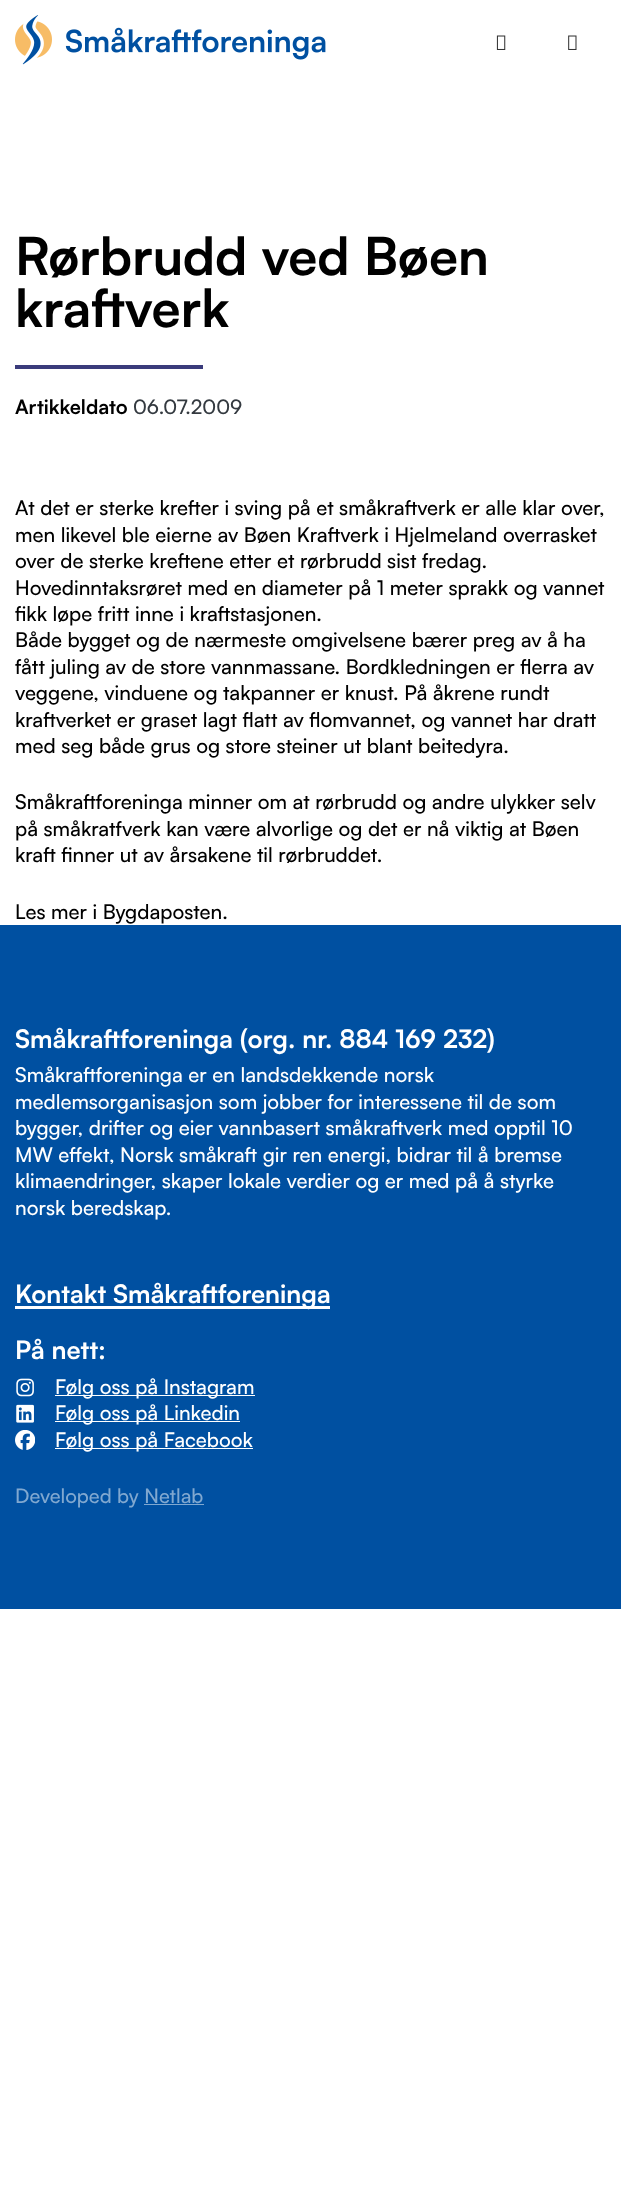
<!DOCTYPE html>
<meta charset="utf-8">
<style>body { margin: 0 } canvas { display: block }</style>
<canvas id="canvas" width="621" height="2195"></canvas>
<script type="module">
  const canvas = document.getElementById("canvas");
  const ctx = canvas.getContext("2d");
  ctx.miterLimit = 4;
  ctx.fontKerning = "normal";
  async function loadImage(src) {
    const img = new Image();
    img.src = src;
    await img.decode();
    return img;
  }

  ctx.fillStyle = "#ffffff";
  ctx.fillRect(0, 0, 621, 2195);
  ctx.drawImage(await loadImage("img1.png"), 15, 15, 311, 50);
  ctx.drawImage(await loadImage("img2.png"), 496, 35, 10, 15);
  ctx.drawImage(await loadImage("img3.png"), 568, 35, 9, 15);
  ctx.font = "bold 52.25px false";
  ctx.fillStyle = "#000000";
  ctx.fillText("Rørbrudd ved Bøen", 15, 275);
  ctx.fillText("kraftverk", 15, 327);
  ctx.fillStyle = "#3a3b7b";
  ctx.fillRect(15, 365, 188, 4);
  ctx.font = "bold 20px false";
  ctx.fillStyle = "#000000";
  ctx.fillText("Artikkeldato", 15, 414);
  ctx.font = "500 20px Satoshi";
  ctx.fillStyle = "#343a40";
  ctx.fillText("06.07.2009", 133, 414);
  ctx.font = "500 20.3px Satoshi";
  ctx.fillStyle = "#000000";
  ctx.fillText("At det er sterke krefter i sving på et småkraftverk er alle klar over,", 15, 515);
  ctx.fillText("men likevel ble eierne av Bøen Kraftverk i Hjelmeland overrasket", 15, 542);
  ctx.fillText("over de sterke kreftene etter et rørbrudd sist fredag.", 15, 568);
  ctx.fillText("Hovedinntaksrøret med en diameter på 1 meter sprakk og vannet", 15, 595);
  ctx.fillText("fikk løpe fritt inne i kraftstasjonen.", 15, 621);
  ctx.fillText("Både bygget og de nærmeste omgivelsene bærer preg av å ha", 15, 647);
  ctx.fillText("fått juling av de store vannmassane. Bordkledningen er flerra av", 15, 674);
  ctx.fillText("veggene, vinduene og takpanner er knust. På åkrene rundt", 15, 700);
  ctx.fillText("kraftverket er graset lagt flatt av flomvannet, og vannet har dratt", 15, 727);
  ctx.fillText("med seg både grus og store steiner ut blant beitedyra.", 15, 753);
  ctx.fillText("Småkraftforeninga minner om at rørbrudd og andre ulykker selv", 15, 809);
  ctx.fillText("på småkratfverk kan være alvorlige og det er nå viktig at Bøen", 15, 836);
  ctx.fillText("kraft finner ut av årsakene til rørbruddet.", 15, 862);
  ctx.fillText("Les mer i Bygdaposten.", 15, 919);
  ctx.fillStyle = "#0050a1";
  ctx.fillRect(0, 925, 621, 684);
  ctx.font = "bold 25.4px false";
  ctx.fillStyle = "#ffffff";
  ctx.fillText("Småkraftforeninga (org. nr. 884 169 232)", 15, 1048);
  ctx.font = "500 20.3px Satoshi";
  ctx.fillText("Småkraftforeninga er en landsdekkende norsk", 15, 1082);
  ctx.fillText("medlemsorganisasjon som jobber for interessene til de som", 15, 1109);
  ctx.fillText("bygger, drifter og eier vannbasert småkraftverk med opptil 10", 15, 1135);
  ctx.fillText("MW effekt, Norsk småkraft gir ren energi, bidrar til å bremse", 15, 1162);
  ctx.fillText("klimaendringer, skaper lokale verdier og er med på å styrke", 15, 1188);
  ctx.fillText("norsk beredskap.", 15, 1215);
  ctx.fillRect(15, 1306, 315, 3);
  ctx.font = "bold 25.4px false";
  ctx.fillText("Kontakt Småkraftforeninga", 15, 1303);
  ctx.fillText("På nett:", 15, 1359);
  ctx.drawImage(await loadImage("img4.png"), 16, 1378, 18, 19);
  ctx.fillRect(55, 1395, 200, 1);
  ctx.font = "500 20.3px Satoshi";
  ctx.fillText("Følg oss på Instagram", 55, 1394);
  ctx.drawImage(await loadImage("img5.png"), 16, 1404, 18, 19);
  ctx.fillRect(55, 1421, 185, 1);
  ctx.fillText("Følg oss på Linkedin", 55, 1420);
  ctx.drawImage(await loadImage("img6.png"), 15, 1430, 20, 20);
  ctx.fillRect(55, 1448, 198, 1);
  ctx.fillText("Følg oss på Facebook", 55, 1447);
  ctx.font = "500 20px Satoshi";
  ctx.fillStyle = "#80a8d0";
  ctx.fillText("Developed by Netlab", 15, 1503);
  ctx.fillRect(144, 1504, 60, 1);
</script>
